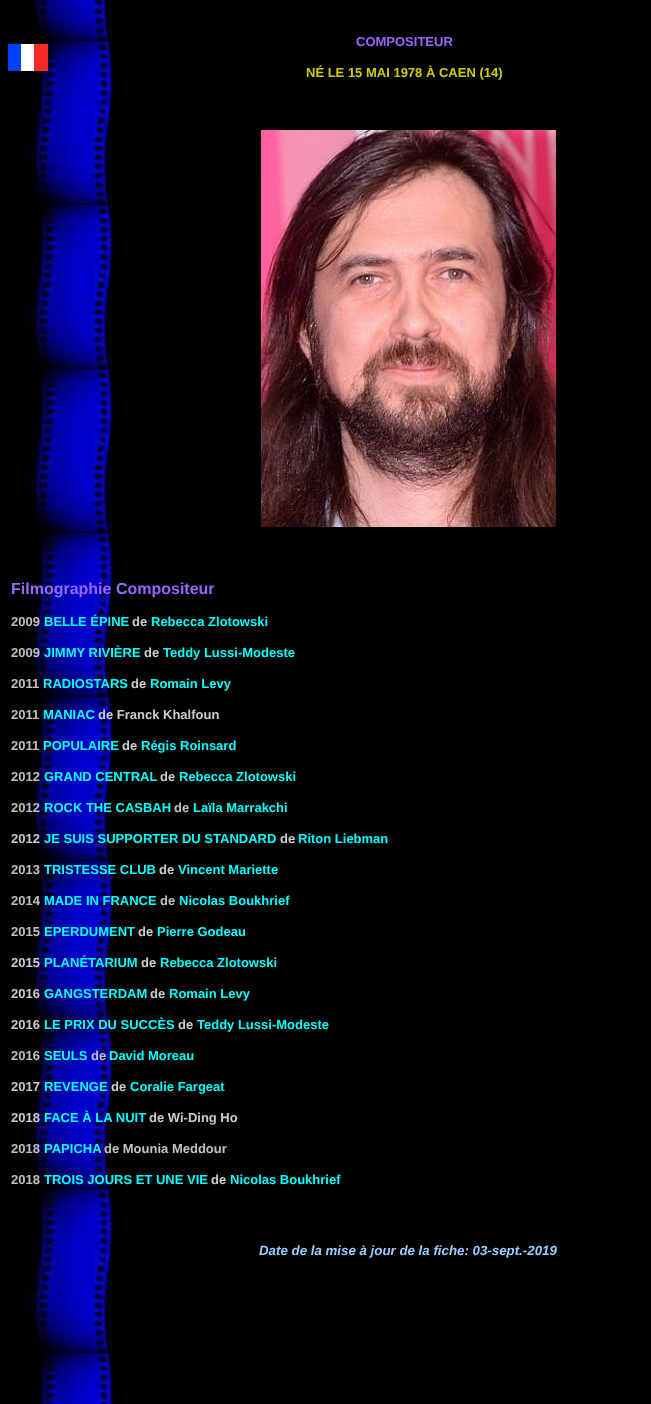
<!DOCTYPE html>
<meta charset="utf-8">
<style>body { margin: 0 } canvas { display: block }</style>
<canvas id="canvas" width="651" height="1404"></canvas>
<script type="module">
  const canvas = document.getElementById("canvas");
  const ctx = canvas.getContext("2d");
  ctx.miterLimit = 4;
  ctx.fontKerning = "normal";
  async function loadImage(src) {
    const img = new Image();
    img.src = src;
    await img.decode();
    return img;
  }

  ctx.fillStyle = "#000000";
  ctx.fillRect(0, 0, 651, 1404);
  ctx.drawImage(await loadImage("img1.png"), 25, 0, 88, 1404);
  ctx.drawImage(await loadImage("img2.png"), 8, 44, 40, 27);
  ctx.font = "bold 13px Liberation Sans";
  ctx.fillStyle = "#9966ff";
  ctx.fillText("COMPOSITEUR", 356, 46);
  ctx.fillStyle = "#cccc00";
  ctx.fillText("NÉ LE 15 MAI 1978 À CAEN (14)", 306, 77);
  ctx.drawImage(await loadImage("img3.png"), 261, 130, 295, 397);
  ctx.font = "bold 16px Liberation Sans";
  ctx.fillStyle = "#9966ff";
  ctx.fillText("Filmographie Compositeur", 11, 594);
  ctx.font = "bold 13px Liberation Sans";
  ctx.fillStyle = "#c0c0c0";
  ctx.fillText("2009", 11, 626);
  ctx.fillStyle = "#00ffff";
  ctx.fillText("BELLE ÉPINE", 44, 626);
  ctx.fillStyle = "#cccccc";
  ctx.fillText("de", 132, 626);
  ctx.fillStyle = "#00ffff";
  ctx.fillText("Rebecca Zlotowski", 151, 626);
  ctx.fillStyle = "#c0c0c0";
  ctx.fillText("2009", 11, 657);
  ctx.fillStyle = "#00ffff";
  ctx.fillText("JIMMY RIVIÈRE", 44, 657);
  ctx.fillStyle = "#cccccc";
  ctx.fillText("de", 144, 657);
  ctx.fillStyle = "#00ffff";
  ctx.fillText("Teddy Lussi-Modeste", 163, 657);
  ctx.fillStyle = "#c0c0c0";
  ctx.fillText("2011", 11, 688);
  ctx.fillStyle = "#00ffff";
  ctx.fillText("RADIOSTARS", 43, 688);
  ctx.fillStyle = "#cccccc";
  ctx.fillText("de", 131, 688);
  ctx.fillStyle = "#00ffff";
  ctx.fillText("Romain Levy", 150, 688);
  ctx.fillStyle = "#c0c0c0";
  ctx.fillText("2011", 11, 719);
  ctx.fillStyle = "#00ffff";
  ctx.fillText("MANIAC", 43, 719);
  ctx.fillStyle = "#cccccc";
  ctx.fillText("de Franck Khalfoun", 98, 719);
  ctx.fillStyle = "#c0c0c0";
  ctx.fillText("2011", 11, 750);
  ctx.fillStyle = "#00ffff";
  ctx.fillText("POPULAIRE", 43, 750);
  ctx.fillStyle = "#cccccc";
  ctx.fillText("de", 122, 750);
  ctx.fillStyle = "#00ffff";
  ctx.fillText("Régis Roinsard", 141, 750);
  ctx.fillStyle = "#c0c0c0";
  ctx.fillText("2012", 11, 781);
  ctx.fillStyle = "#00ffff";
  ctx.fillText("GRAND CENTRAL", 44, 781);
  ctx.fillStyle = "#cccccc";
  ctx.fillText("de", 160, 781);
  ctx.fillStyle = "#00ffff";
  ctx.fillText("Rebecca Zlotowski", 179, 781);
  ctx.fillStyle = "#c0c0c0";
  ctx.fillText("2012", 11, 812);
  ctx.fillStyle = "#00ffff";
  ctx.fillText("ROCK THE CASBAH", 44, 812);
  ctx.fillStyle = "#c0c0c0";
  ctx.fillText("de", 174, 812);
  ctx.fillStyle = "#00ffff";
  ctx.fillText("Laïla Marrakchi", 193, 812);
  ctx.fillStyle = "#cccccc";
  ctx.fillText("2012", 11, 843);
  ctx.fillStyle = "#00ffff";
  ctx.fillText("JE SUIS SUPPORTER DU STANDARD", 44, 843);
  ctx.fillStyle = "#cccccc";
  ctx.fillText("de", 280, 843);
  ctx.fillStyle = "#00ffff";
  ctx.fillText("Riton Liebman", 298, 843);
  ctx.fillStyle = "#c0c0c0";
  ctx.fillText("2013", 11, 874);
  ctx.fillStyle = "#00ffff";
  ctx.fillText("TRISTESSE CLUB", 44, 874);
  ctx.fillStyle = "#cccccc";
  ctx.fillText("de", 159, 874);
  ctx.fillStyle = "#00ffff";
  ctx.fillText("Vincent Mariette", 178, 874);
  ctx.fillStyle = "#c0c0c0";
  ctx.fillText("2014", 11, 905);
  ctx.fillStyle = "#00ffff";
  ctx.fillText("MADE IN FRANCE", 44, 905);
  ctx.fillStyle = "#c0c0c0";
  ctx.fillText("de", 160, 905);
  ctx.fillStyle = "#00ffff";
  ctx.fillText("Nicolas Boukhrief", 179, 905);
  ctx.fillStyle = "#c0c0c0";
  ctx.fillText("2015", 11, 936);
  ctx.fillStyle = "#00ffff";
  ctx.fillText("EPERDUMENT", 44, 936);
  ctx.fillStyle = "#cccccc";
  ctx.fillText("de", 138, 936);
  ctx.fillStyle = "#00ffff";
  ctx.fillText("Pierre Godeau", 157, 936);
  ctx.fillStyle = "#cccccc";
  ctx.fillText("2015", 11, 967);
  ctx.fillStyle = "#00ffff";
  ctx.fillText("PLANÉTARIUM", 44, 967);
  ctx.fillStyle = "#cccccc";
  ctx.fillText("de", 141, 967);
  ctx.fillStyle = "#00ffff";
  ctx.fillText("Rebecca Zlotowski", 160, 967);
  ctx.fillStyle = "#cccccc";
  ctx.fillText("2016", 11, 998);
  ctx.fillStyle = "#00ffff";
  ctx.fillText("GANGSTERDAM", 44, 998);
  ctx.fillStyle = "#cccccc";
  ctx.fillText("de", 150, 998);
  ctx.fillStyle = "#00ffff";
  ctx.fillText("Romain Levy", 169, 998);
  ctx.fillStyle = "#cccccc";
  ctx.fillText("2016", 11, 1029);
  ctx.fillStyle = "#00ffff";
  ctx.fillText("LE PRIX DU SUCCÈS", 44, 1029);
  ctx.fillStyle = "#cccccc";
  ctx.fillText("de", 178, 1029);
  ctx.fillStyle = "#00ffff";
  ctx.fillText("Teddy Lussi-Modeste", 197, 1029);
  ctx.fillStyle = "#c0c0c0";
  ctx.fillText("2016", 11, 1060);
  ctx.fillStyle = "#00ffff";
  ctx.fillText("SEULS", 44, 1060);
  ctx.fillStyle = "#c0c0c0";
  ctx.fillText("de", 91, 1060);
  ctx.fillStyle = "#00ffff";
  ctx.fillText("David Moreau", 109, 1060);
  ctx.fillStyle = "#cccccc";
  ctx.fillText("2017", 11, 1091);
  ctx.fillStyle = "#00ffff";
  ctx.fillText("REVENGE", 44, 1091);
  ctx.fillStyle = "#cccccc";
  ctx.fillText("de", 111, 1091);
  ctx.fillStyle = "#00ffff";
  ctx.fillText("Coralie Fargeat", 130, 1091);
  ctx.fillStyle = "#cccccc";
  ctx.fillText("2018", 11, 1122);
  ctx.fillStyle = "#00ffff";
  ctx.fillText("FACE À LA NUIT", 44, 1122);
  ctx.fillStyle = "#cccccc";
  ctx.fillText("de Wi-Ding Ho", 149, 1122);
  ctx.fillStyle = "#c0c0c0";
  ctx.fillText("2018", 11, 1153);
  ctx.fillStyle = "#00ffff";
  ctx.fillText("PAPICHA", 44, 1153);
  ctx.fillStyle = "#c0c0c0";
  ctx.fillText("de Mounia Meddour", 104, 1153);
  ctx.fillText("2018", 11, 1184);
  ctx.fillStyle = "#00ffff";
  ctx.fillText("TROIS JOURS ET UNE VIE", 44, 1184);
  ctx.fillStyle = "#cccccc";
  ctx.fillText("de", 211, 1184);
  ctx.fillStyle = "#00ffff";
  ctx.fillText("Nicolas Boukhrief", 230, 1184);
  ctx.font = "italic bold 13.3px Liberation Sans";
  ctx.fillStyle = "#99ccff";
  ctx.fillText("Date de la mise à jour de la fiche: 03-sept.-2019", 259, 1255);
</script>
